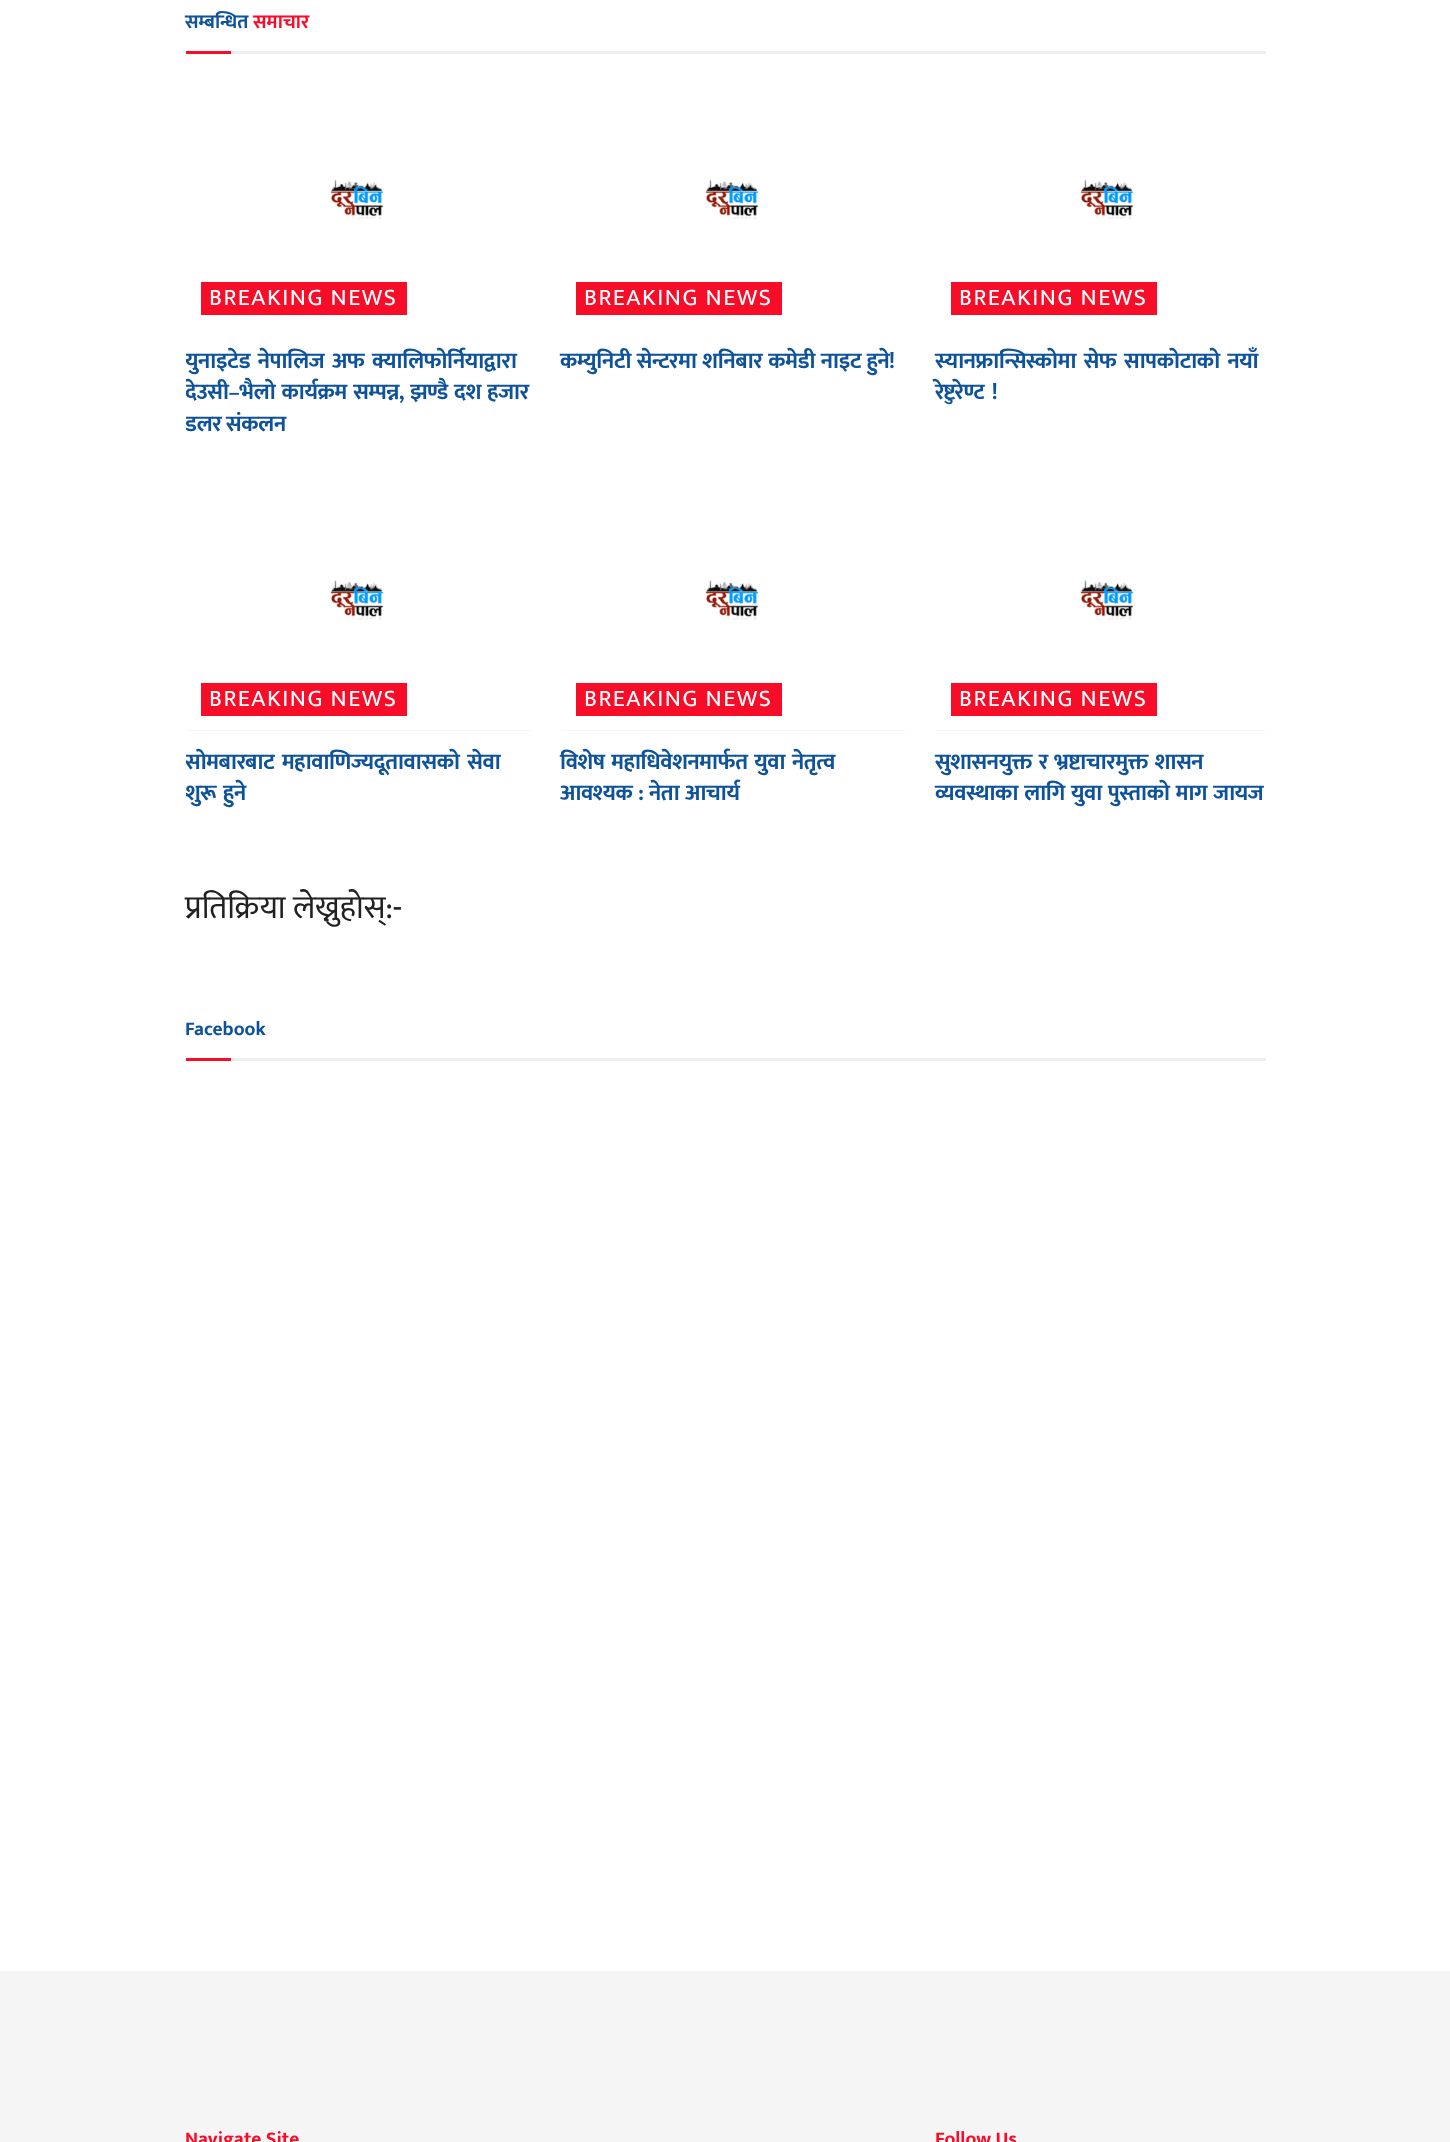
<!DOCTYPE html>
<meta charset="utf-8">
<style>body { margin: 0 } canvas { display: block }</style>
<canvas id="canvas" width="1450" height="2142"></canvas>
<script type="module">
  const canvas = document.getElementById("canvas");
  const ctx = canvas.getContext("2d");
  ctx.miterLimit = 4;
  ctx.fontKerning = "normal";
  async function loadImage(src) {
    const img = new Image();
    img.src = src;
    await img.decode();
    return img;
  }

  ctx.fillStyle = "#ffffff";
  ctx.fillRect(0, 0, 1450, 2142);
  ctx.fillStyle = "#eeeeee";
  ctx.fillRect(231, 51, 1035, 3);
  ctx.font = "bold 19.5px Mukta";
  ctx.fillStyle = "#0e539a";
  ctx.fillText("सम्बन्धित", 185, 28);
  ctx.fillStyle = "#f70d28";
  ctx.fillText("समाचार", 253, 28);
  ctx.fillRect(186, 51, 45, 3);
  ctx.drawImage(await loadImage("img1.png"), 186, 84, 345, 246);
  ctx.fillRect(201, 282, 206, 33);
  ctx.letterSpacing = "1.5px";
  ctx.font = "24px Mukta";
  ctx.fillStyle = "#ffffff";
  ctx.fillText("BREAKING NEWS", 209, 305);
  ctx.save();
  ctx.beginPath();
  ctx.rect(186, 84, 1080, 770);
  ctx.clip();
  ctx.letterSpacing = "-0.45px";
  ctx.wordSpacing = "3px";
  ctx.font = "bold 22.5px Mukta";
  ctx.fillStyle = "#0e539a";
  ctx.fillText("युनाइटेड नेपालिज अफ क्यालिफोर्नियाद्वारा", 185, 368);
  ctx.wordSpacing = "1.5px";
  ctx.fillText("देउसी–भैलो कार्यक्रम सम्पन्न, झण्डै दश हजार", 185, 399);
  ctx.wordSpacing = "0px";
  ctx.fillText("डलर संकलन", 185, 431);
  ctx.restore();
  ctx.drawImage(await loadImage("img1.png"), 561, 84, 345, 246);
  ctx.fillStyle = "#f70d28";
  ctx.fillRect(576, 282, 206, 33);
  ctx.fillStyle = "#ffffff";
  ctx.fillText("BREAKING NEWS", 584, 305);
  ctx.letterSpacing = "-0.45px";
  ctx.wordSpacing = "1px";
  ctx.font = "bold 22.5px Mukta";
  ctx.fillStyle = "#0e539a";
  ctx.fillText("कम्युनिटी सेन्टरमा शनिबार कमेडी नाइट हुने", 560, 368);
  ctx.wordSpacing = "0px";
  ctx.fillText("!", 889, 368);
  ctx.drawImage(await loadImage("img2.png"), 936, 84, 330, 246);
  ctx.fillStyle = "#f70d28";
  ctx.fillRect(951, 282, 206, 33);
  ctx.letterSpacing = "1.5px";
  ctx.font = "24px Mukta";
  ctx.fillStyle = "#ffffff";
  ctx.fillText("BREAKING NEWS", 959, 305);
  ctx.letterSpacing = "-0.45px";
  ctx.wordSpacing = "3px";
  ctx.font = "bold 22.5px Mukta";
  ctx.fillStyle = "#0e539a";
  ctx.fillText("स्यानफ्रान्सिस्कोमा सेफ सापकोटाको नयाँ", 935, 368);
  ctx.fillText("रेष्टुरेण्ट !", 935, 399);
  ctx.fillStyle = "#f7f7f7";
  ctx.fillRect(186, 730, 345, 1);
  ctx.drawImage(await loadImage("img3.png"), 186, 485, 345, 245);
  ctx.fillStyle = "#f70d28";
  ctx.fillRect(201, 683, 206, 33);
  ctx.letterSpacing = "1.5px";
  ctx.wordSpacing = "0px";
  ctx.font = "24px Mukta";
  ctx.fillStyle = "#ffffff";
  ctx.fillText("BREAKING NEWS", 209, 706);
  ctx.save();
  ctx.beginPath();
  ctx.rect(186, 84, 1080, 770);
  ctx.clip();
  ctx.letterSpacing = "-0.45px";
  ctx.wordSpacing = "3px";
  ctx.font = "bold 22.5px Mukta";
  ctx.fillStyle = "#0e539a";
  ctx.fillText("सोमबारबाट महावाणिज्यदूतावासको सेवा", 185, 769);
  ctx.wordSpacing = "2px";
  ctx.fillText("शुरू हुने", 185, 800);
  ctx.restore();
  ctx.fillStyle = "#f7f7f7";
  ctx.fillRect(561, 730, 345, 1);
  ctx.drawImage(await loadImage("img3.png"), 561, 485, 345, 245);
  ctx.fillStyle = "#f70d28";
  ctx.fillRect(576, 683, 206, 33);
  ctx.fillStyle = "#ffffff";
  ctx.fillText("BREAKING NEWS", 584, 706);
  ctx.letterSpacing = "-0.45px";
  ctx.wordSpacing = "2px";
  ctx.font = "bold 22.5px Mukta";
  ctx.fillStyle = "#0e539a";
  ctx.fillText("विशेष महाधिवेशनमार्फत युवा नेतृत्व", 560, 769);
  ctx.wordSpacing = "1px";
  ctx.fillText("आवश्यक : नेता आचार्य", 560, 800);
  ctx.fillStyle = "#f7f7f7";
  ctx.fillRect(936, 730, 330, 1);
  ctx.drawImage(await loadImage("img4.png"), 936, 485, 330, 245);
  ctx.fillStyle = "#f70d28";
  ctx.fillRect(951, 683, 206, 33);
  ctx.letterSpacing = "1.5px";
  ctx.wordSpacing = "0px";
  ctx.font = "24px Mukta";
  ctx.fillStyle = "#ffffff";
  ctx.fillText("BREAKING NEWS", 959, 706);
  ctx.letterSpacing = "-0.45px";
  ctx.wordSpacing = "2px";
  ctx.font = "bold 22.5px Mukta";
  ctx.fillStyle = "#0e539a";
  ctx.fillText("सुशासनयुक्त र भ्रष्टाचारमुक्त शासन", 935, 769);
  ctx.wordSpacing = "1.5px";
  ctx.fillText("व्यवस्थाका लागि युवा पुस्ताको माग जायज", 935, 800);
  ctx.letterSpacing = "0px";
  ctx.wordSpacing = "0px";
  ctx.font = "32.75px Mukta";
  ctx.fillStyle = "#212121";
  ctx.fillText("प्रतिक्रिया लेख्नुहोस्:-", 185, 918);
  ctx.fillStyle = "#eeeeee";
  ctx.fillRect(231, 1058, 1035, 3);
  ctx.font = "bold 19.5px Mukta";
  ctx.fillStyle = "#0e539a";
  ctx.fillText("Facebook", 185, 1035);
  ctx.fillStyle = "#f70d28";
  ctx.fillRect(186, 1058, 45, 3);
  ctx.fillStyle = "#f5f5f5";
  ctx.fillRect(0, 1971, 1450, 171);
  ctx.fillStyle = "#f70d28";
  ctx.fillText("Navigate Site", 185, 2145);
  ctx.fillText("Follow Us", 935, 2145);
</script>
